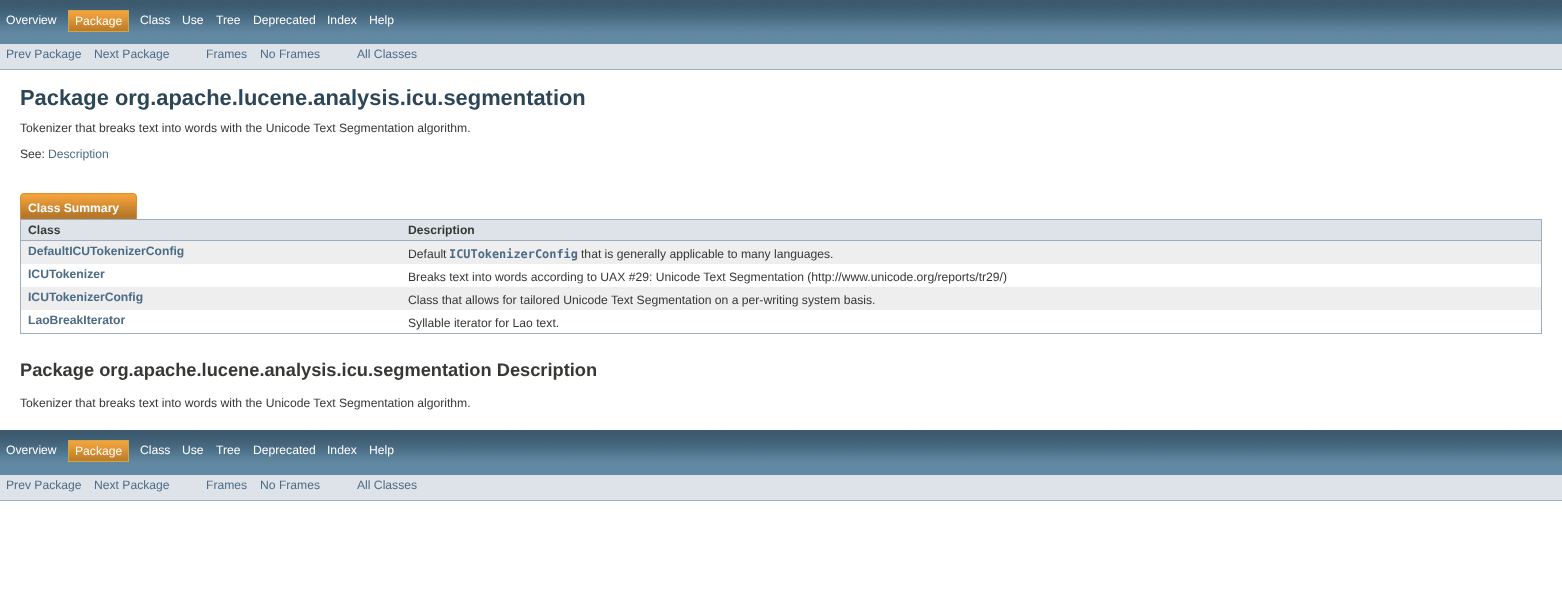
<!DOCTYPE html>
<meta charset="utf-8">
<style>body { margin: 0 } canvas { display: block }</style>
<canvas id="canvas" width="1562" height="612"></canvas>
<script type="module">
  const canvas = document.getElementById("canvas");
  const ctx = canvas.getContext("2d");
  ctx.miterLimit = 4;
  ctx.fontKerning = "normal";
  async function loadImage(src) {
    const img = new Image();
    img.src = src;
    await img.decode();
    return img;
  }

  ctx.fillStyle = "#ffffff";
  ctx.fillRect(0, 0, 1562, 612);
  ctx.drawImage(await loadImage("img1.png"), 0, 0, 1562, 44);
  ctx.font = "12.15px Liberation Sans";
  ctx.fillText("Overview", 6, 24);
  ctx.drawImage(await loadImage("img2.png"), 69, 11, 59, 20);
  ctx.strokeStyle = "#c9aa44";
  ctx.strokeRect(68.5, 10.5, 60, 21);
  ctx.fillText("Package", 75, 25);
  ctx.fillText("Class", 140, 24);
  ctx.fillText("Use", 182, 24);
  ctx.fillText("Tree", 216, 24);
  ctx.fillText("Deprecated", 253, 24);
  ctx.fillText("Index", 327, 24);
  ctx.fillText("Help", 369, 24);
  ctx.fillStyle = "#dee3e9";
  ctx.fillRect(0, 44, 1562, 25);
  ctx.fillStyle = "#9eadc0";
  ctx.fillRect(0, 69, 1562, 1);
  ctx.fillStyle = "#4c6b87";
  ctx.fillText("Prev Package", 6, 58);
  ctx.fillText("Next Package", 94, 58);
  ctx.fillText("Frames", 206, 58);
  ctx.fillText("No Frames", 260, 58);
  ctx.fillText("All Classes", 357, 58);
  ctx.font = "bold 21.9px Liberation Sans";
  ctx.fillStyle = "#2c4557";
  ctx.fillText("Package org.apache.lucene.analysis.icu.segmentation", 20, 105);
  ctx.font = "12.15px Liberation Sans";
  ctx.fillStyle = "#353833";
  ctx.fillText("Tokenizer that breaks text into words with the Unicode Text Segmentation algorithm.", 20, 132);
  ctx.fillText("See:", 20, 158);
  ctx.fillStyle = "#4c6b87";
  ctx.fillText("Description", 48, 158);
  ctx.fillStyle = "#9eadc0";
  ctx.fillRect(20, 333, 1522, 1);
  ctx.drawImage(await loadImage("img3.png"), 20, 193, 99, 26);
  ctx.font = "bold 12.15px Liberation Sans";
  ctx.fillStyle = "#ffffff";
  ctx.fillText("Class Summary", 28, 212);
  ctx.drawImage(await loadImage("img4.png"), 119, 193, 18, 26);
  ctx.fillStyle = "#dee3e9";
  ctx.fillRect(21, 220, 1520, 20);
  ctx.fillStyle = "#9eadc0";
  ctx.fillRect(20, 219, 1522, 1);
  ctx.fillRect(20, 240, 381, 1);
  ctx.fillRect(20, 219, 1, 114);
  ctx.fillStyle = "#353833";
  ctx.fillText("Class", 28, 234);
  ctx.fillStyle = "#9eadc0";
  ctx.fillRect(1541, 219, 1, 114);
  ctx.fillRect(401, 240, 1141, 1);
  ctx.fillStyle = "#353833";
  ctx.fillText("Description", 408, 234);
  ctx.fillStyle = "#eeeeef";
  ctx.fillRect(21, 241, 1520, 23);
  ctx.fillStyle = "#4c6b87";
  ctx.fillText("DefaultICUTokenizerConfig", 28, 255);
  ctx.font = "12.15px Liberation Sans";
  ctx.fillStyle = "#353833";
  ctx.fillText("Default", 408, 258);
  ctx.font = "bold 11.9px DejaVu Sans Mono";
  ctx.fillStyle = "#4c6b87";
  ctx.fillText("ICUTokenizerConfig", 449, 258);
  ctx.font = "12.15px Liberation Sans";
  ctx.fillStyle = "#353833";
  ctx.fillText("that is generally applicable to many languages.", 581, 258);
  ctx.font = "bold 12.15px Liberation Sans";
  ctx.fillStyle = "#4c6b87";
  ctx.fillText("ICUTokenizer", 28, 278);
  ctx.font = "12.15px Liberation Sans";
  ctx.fillStyle = "#353833";
  ctx.fillText("Breaks text into words according to UAX #29: Unicode Text Segmentation (http://www.unicode.org/reports/tr29/)", 408, 281);
  ctx.fillStyle = "#eeeeef";
  ctx.fillRect(21, 287, 1520, 23);
  ctx.font = "bold 12.15px Liberation Sans";
  ctx.fillStyle = "#4c6b87";
  ctx.fillText("ICUTokenizerConfig", 28, 301);
  ctx.font = "12.15px Liberation Sans";
  ctx.fillStyle = "#353833";
  ctx.fillText("Class that allows for tailored Unicode Text Segmentation on a per-writing system basis.", 408, 304);
  ctx.font = "bold 12.15px Liberation Sans";
  ctx.fillStyle = "#4c6b87";
  ctx.fillText("LaoBreakIterator", 28, 324);
  ctx.font = "12.15px Liberation Sans";
  ctx.fillStyle = "#353833";
  ctx.fillText("Syllable iterator for Lao text.", 408, 327);
  ctx.font = "bold 18.25px Liberation Sans";
  ctx.fillText("Package org.apache.lucene.analysis.icu.segmentation Description", 20, 376);
  ctx.font = "12.15px Liberation Sans";
  ctx.fillText("Tokenizer that breaks text into words with the Unicode Text Segmentation algorithm.", 20, 407);
  ctx.drawImage(await loadImage("img5.png"), 0, 430, 1562, 45);
  ctx.fillStyle = "#ffffff";
  ctx.fillText("Overview", 6, 454);
  ctx.drawImage(await loadImage("img2.png"), 69, 441, 59, 20);
  ctx.strokeRect(68.5, 440.5, 60, 21);
  ctx.fillText("Package", 75, 455);
  ctx.fillText("Class", 140, 454);
  ctx.fillText("Use", 182, 454);
  ctx.fillText("Tree", 216, 454);
  ctx.fillText("Deprecated", 253, 454);
  ctx.fillText("Index", 327, 454);
  ctx.fillText("Help", 369, 454);
  ctx.fillStyle = "#dee3e9";
  ctx.fillRect(0, 475, 1562, 25);
  ctx.fillStyle = "#9eadc0";
  ctx.fillRect(0, 500, 1562, 1);
  ctx.fillStyle = "#4c6b87";
  ctx.fillText("Prev Package", 6, 489);
  ctx.fillText("Next Package", 94, 489);
  ctx.fillText("Frames", 206, 489);
  ctx.fillText("No Frames", 260, 489);
  ctx.fillText("All Classes", 357, 489);
</script>
